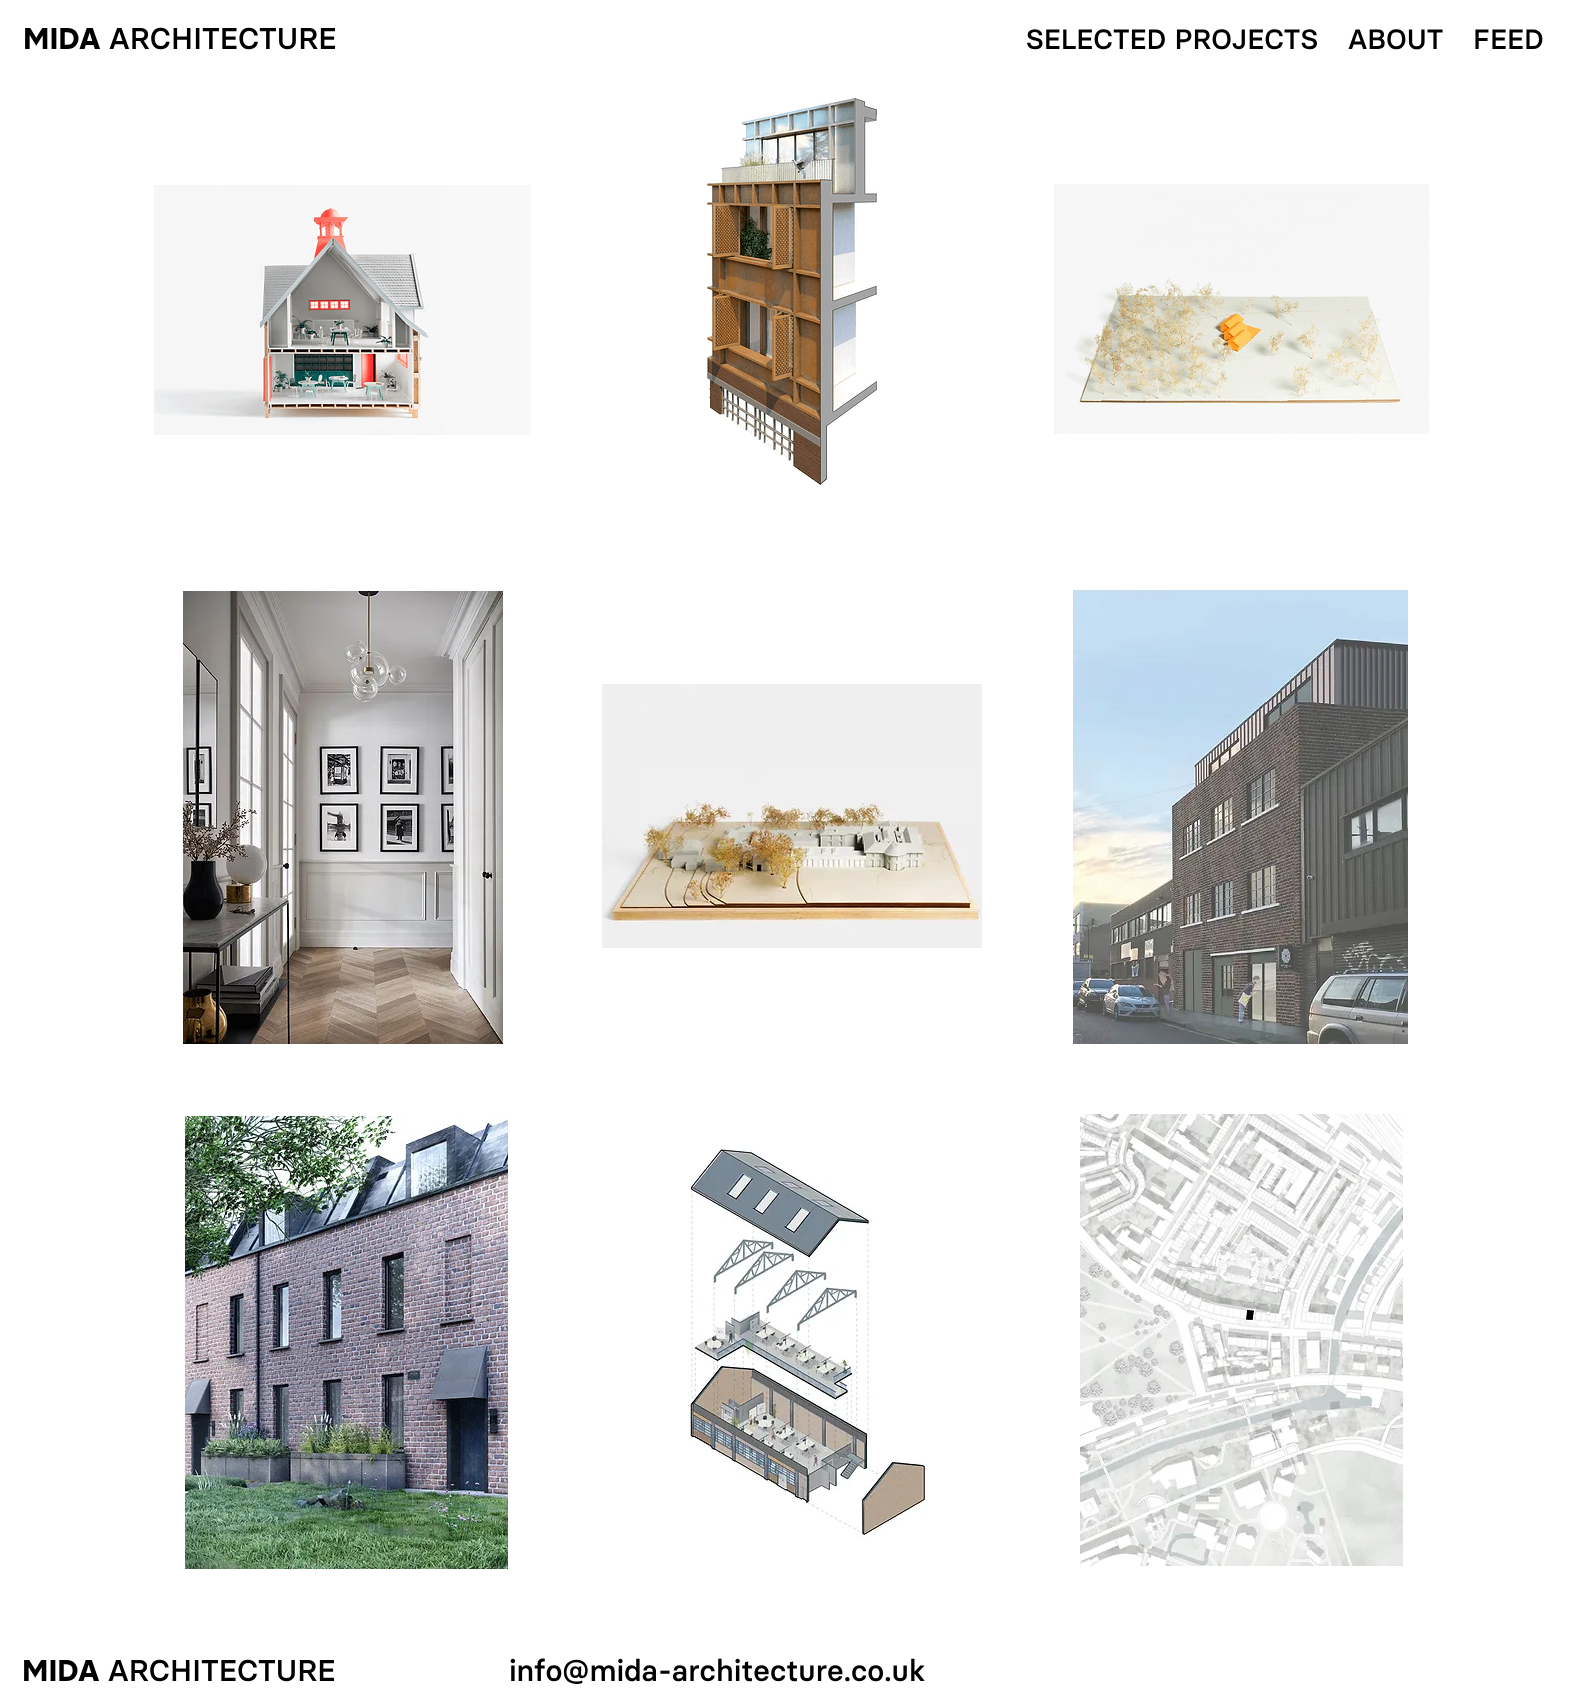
<!DOCTYPE html>
<meta charset="utf-8">
<style>body { margin: 0 } canvas { display: block }</style>
<canvas id="canvas" width="1582" height="1696"></canvas>
<script type="module">
  const canvas = document.getElementById("canvas");
  const ctx = canvas.getContext("2d");
  ctx.miterLimit = 4;
  ctx.fontKerning = "normal";
  async function loadImage(src) {
    const img = new Image();
    img.src = src;
    await img.decode();
    return img;
  }

  ctx.fillStyle = "#ffffff";
  ctx.fillRect(0, 0, 1582, 1696);
  ctx.font = "bold 30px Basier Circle";
  ctx.fillStyle = "#000000";
  ctx.fillText("MIDA", 23, 49);
  ctx.font = "500 30px Basier Circle";
  ctx.fillText("ARCHITECTURE", 109, 49);
  ctx.font = "500 28px Basier Circle";
  ctx.fillText("SELECTED PROJECTS", 1026, 49);
  ctx.fillText("ABOUT", 1348, 49);
  ctx.fillText("FEED", 1473, 49);
  ctx.drawImage(await loadImage("img1.png"), 154, 185, 377, 250);
  ctx.drawImage(await loadImage("img2.png"), 705, 98, 172, 388);
  ctx.drawImage(await loadImage("img3.png"), 1054, 184, 375, 250);
  ctx.drawImage(await loadImage("img4.png"), 183, 591, 320, 453);
  ctx.drawImage(await loadImage("img5.png"), 602, 684, 380, 264);
  ctx.drawImage(await loadImage("img6.png"), 1073, 590, 335, 454);
  ctx.drawImage(await loadImage("img7.png"), 185, 1116, 323, 453);
  ctx.drawImage(await loadImage("img8.png"), 687, 1146, 241, 392);
  ctx.drawImage(await loadImage("img9.png"), 1080, 1114, 323, 452);
  ctx.font = "bold 30px Basier Circle";
  ctx.fillText("MIDA", 22, 1681);
  ctx.font = "500 30px Basier Circle";
  ctx.fillText("ARCHITECTURE", 108, 1681);
  ctx.fillText("info@mida-architecture.co.uk", 509, 1681);
</script>
